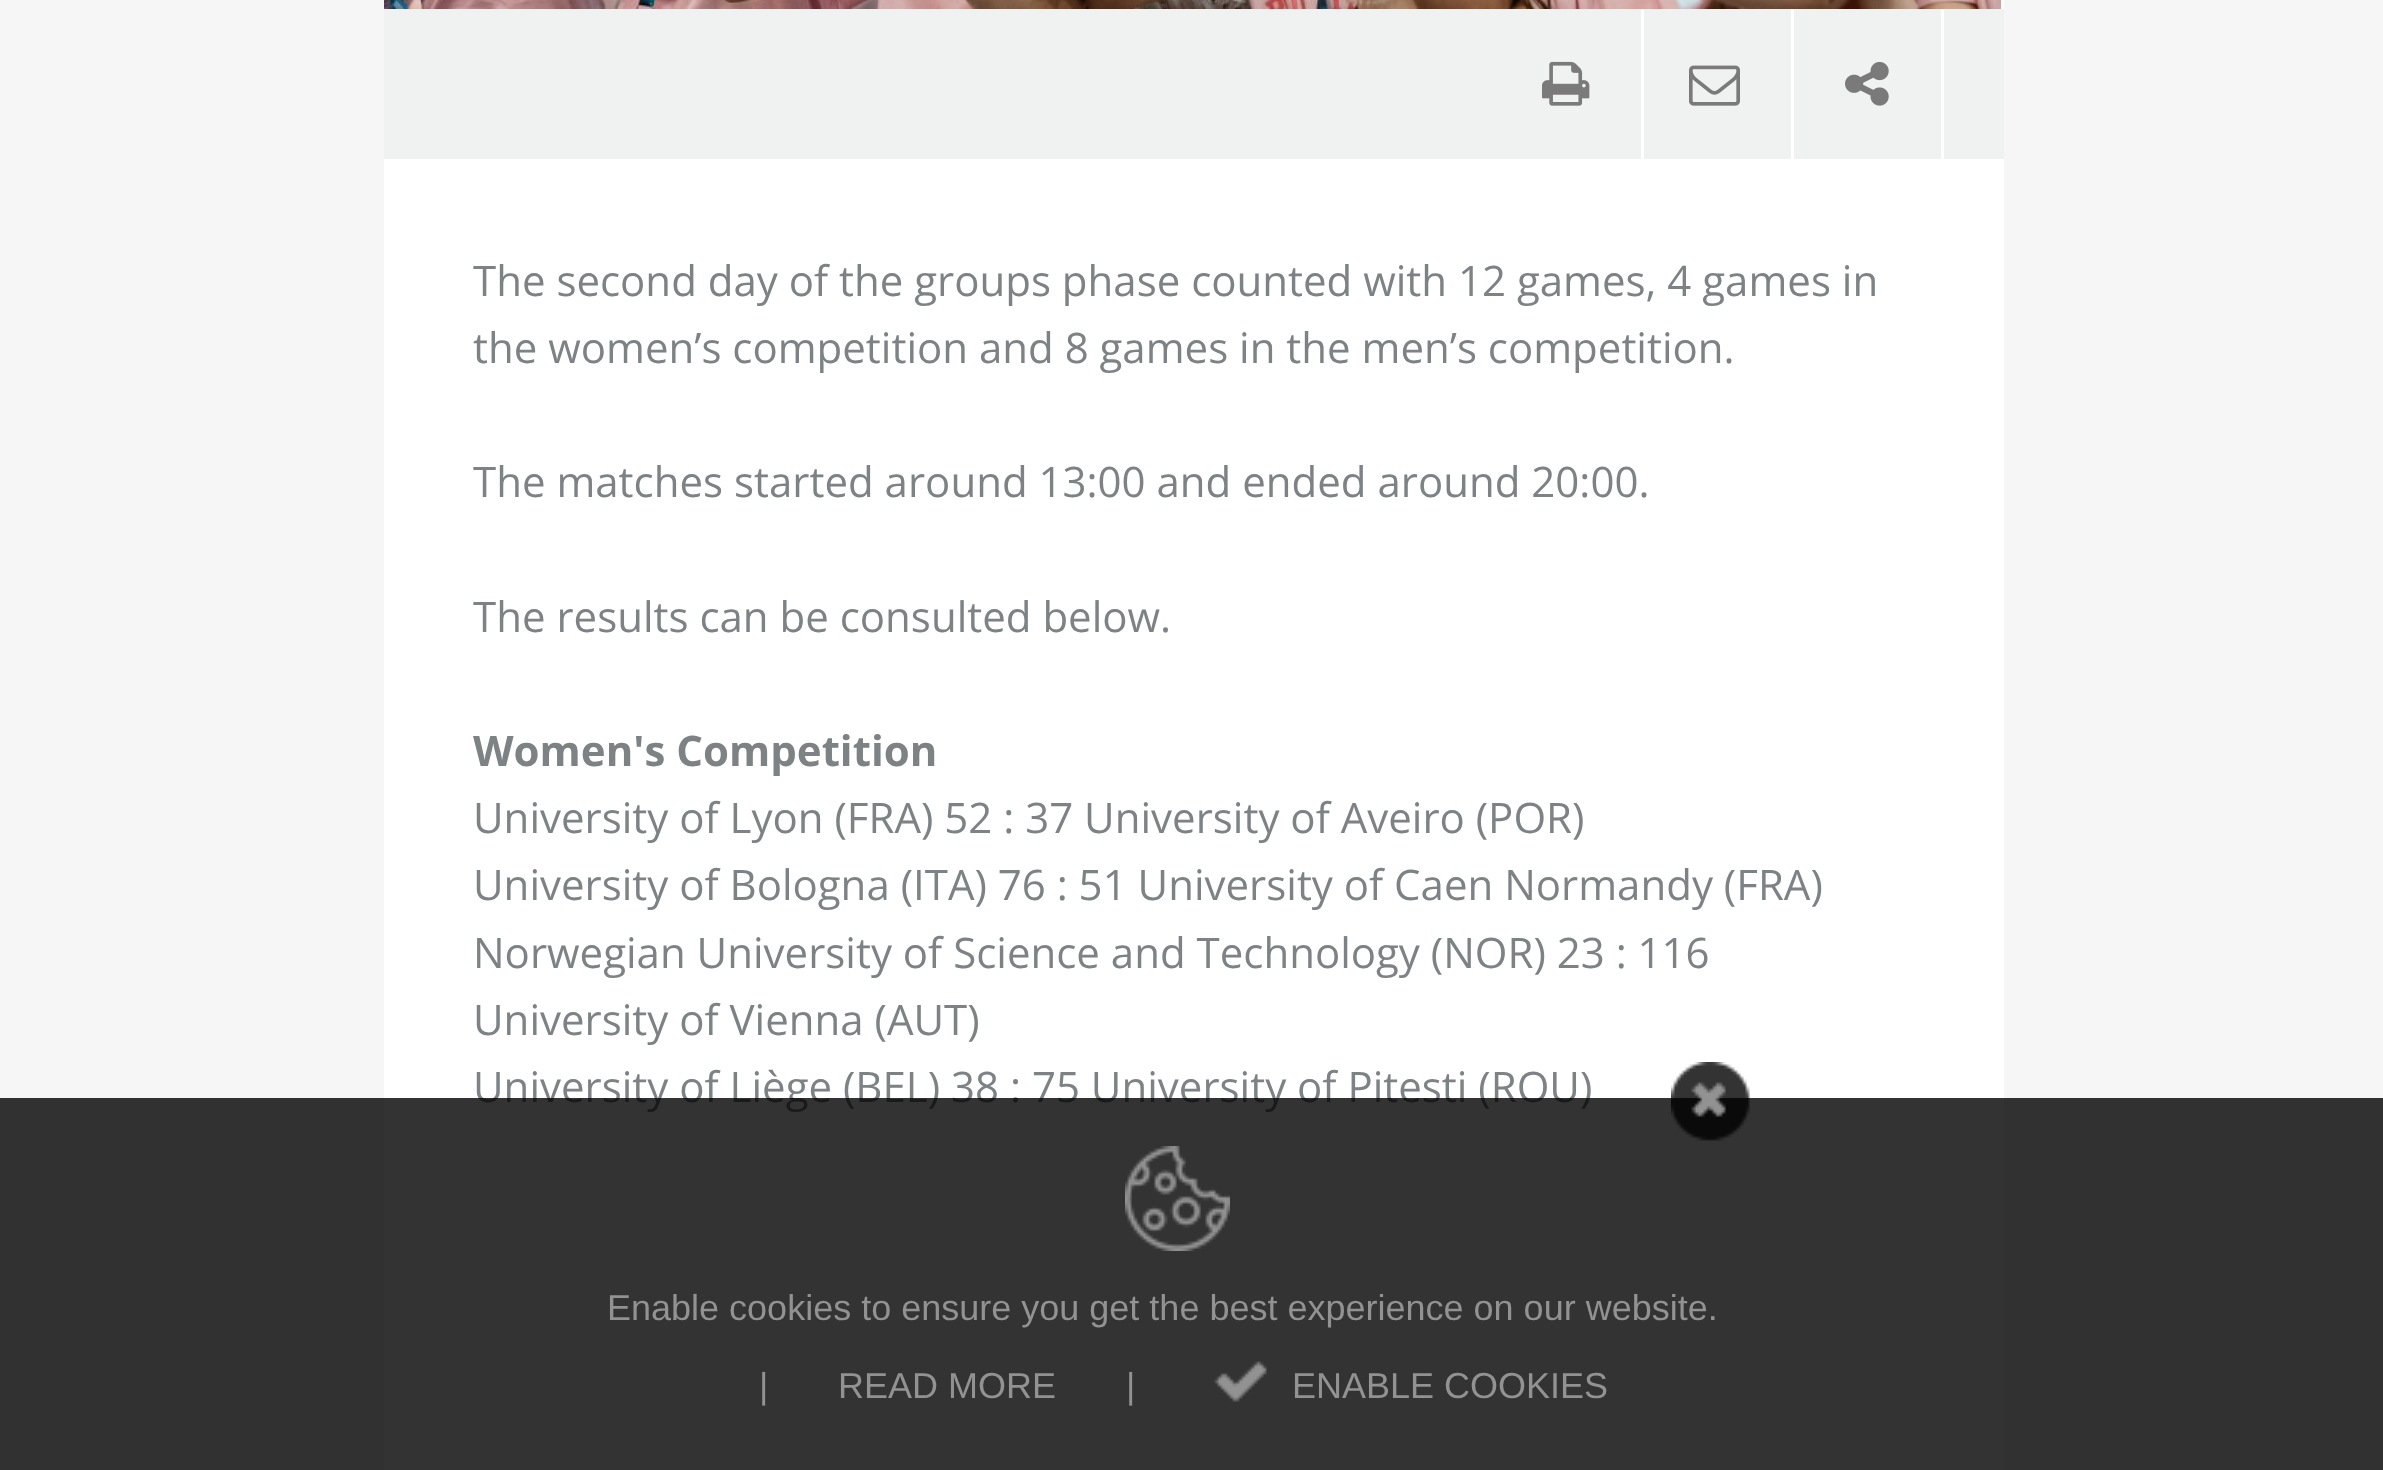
<!DOCTYPE html>
<meta charset="utf-8">
<style>body { margin: 0 } canvas { display: block }</style>
<canvas id="canvas" width="2383" height="1470"></canvas>
<script type="module">
  const canvas = document.getElementById("canvas");
  const ctx = canvas.getContext("2d");
  ctx.miterLimit = 4;
  ctx.fontKerning = "normal";
  async function loadImage(src) {
    const img = new Image();
    img.src = src;
    await img.decode();
    return img;
  }

  ctx.fillStyle = "#f6f6f6";
  ctx.fillRect(0, 0, 2383, 1470);
  ctx.fillStyle = "#ffffff";
  ctx.fillRect(384, 0, 1620, 1470);
  ctx.drawImage(await loadImage("img1.png"), 384, 0, 1617, 9);
  ctx.fillStyle = "#f0f1f1";
  ctx.fillRect(384, 9, 1620, 150);
  ctx.fillStyle = "#ffffff";
  ctx.fillRect(1641, 9, 3, 150);
  ctx.drawImage(await loadImage("img2.png"), 1542, 61, 48, 45);
  ctx.fillRect(1791, 9, 3, 150);
  ctx.drawImage(await loadImage("img3.png"), 1689, 65, 51, 41);
  ctx.fillRect(1941, 9, 3, 150);
  ctx.drawImage(await loadImage("img4.png"), 1845, 61, 44, 45);
  ctx.font = "42px Open Sans";
  ctx.fillStyle = "#7d8285";
  ctx.fillText("The second day of the groups phase counted with 12 games, 4 games in", 473, 296);
  ctx.fillText("the women’s competition and 8 games in the men’s competition.", 473, 363);
  ctx.fillText("The matches started around 13:00 and ended around 20:00.", 473, 497);
  ctx.fillText("The results can be consulted below.", 473, 632);
  ctx.font = "bold 42px Open Sans";
  ctx.fillText("Women's Competition", 473, 766);
  ctx.font = "42px Open Sans";
  ctx.fillText("University of Lyon (FRA) 52 : 37 University of Aveiro (POR)", 473, 833);
  ctx.fillText("University of Bologna (ITA) 76 : 51 University of Caen Normandy (FRA)", 473, 900);
  ctx.fillText("Norwegian University of Science and Technology (NOR) 23 : 116", 473, 968);
  ctx.fillText("University of Vienna (AUT)", 473, 1035);
  ctx.fillText("University of Liège (BEL) 38 : 75 University of Pitesti (ROU)", 473, 1102);
  ctx.fillStyle = "rgba(0, 0, 0, 0.8)";
  ctx.fillRect(0, 1098, 2383, 372);
  ctx.drawImage(await loadImage("img5.png"), 1671, 1062, 79, 79);
  ctx.drawImage(await loadImage("img6.png"), 1125, 1146, 105, 105);
  ctx.font = "36px Liberation Sans";
  ctx.fillStyle = "#929292";
  ctx.fillText("Enable cookies to ensure you get the best experience on our website.", 607, 1320);
  ctx.fillText("|", 759, 1398);
  ctx.fillText("READ MORE", 838, 1398);
  ctx.fillText("|", 1126, 1398);
  ctx.drawImage(await loadImage("img7.png"), 1214, 1361, 53, 41);
  ctx.fillText("ENABLE COOKIES", 1292, 1398);
</script>
